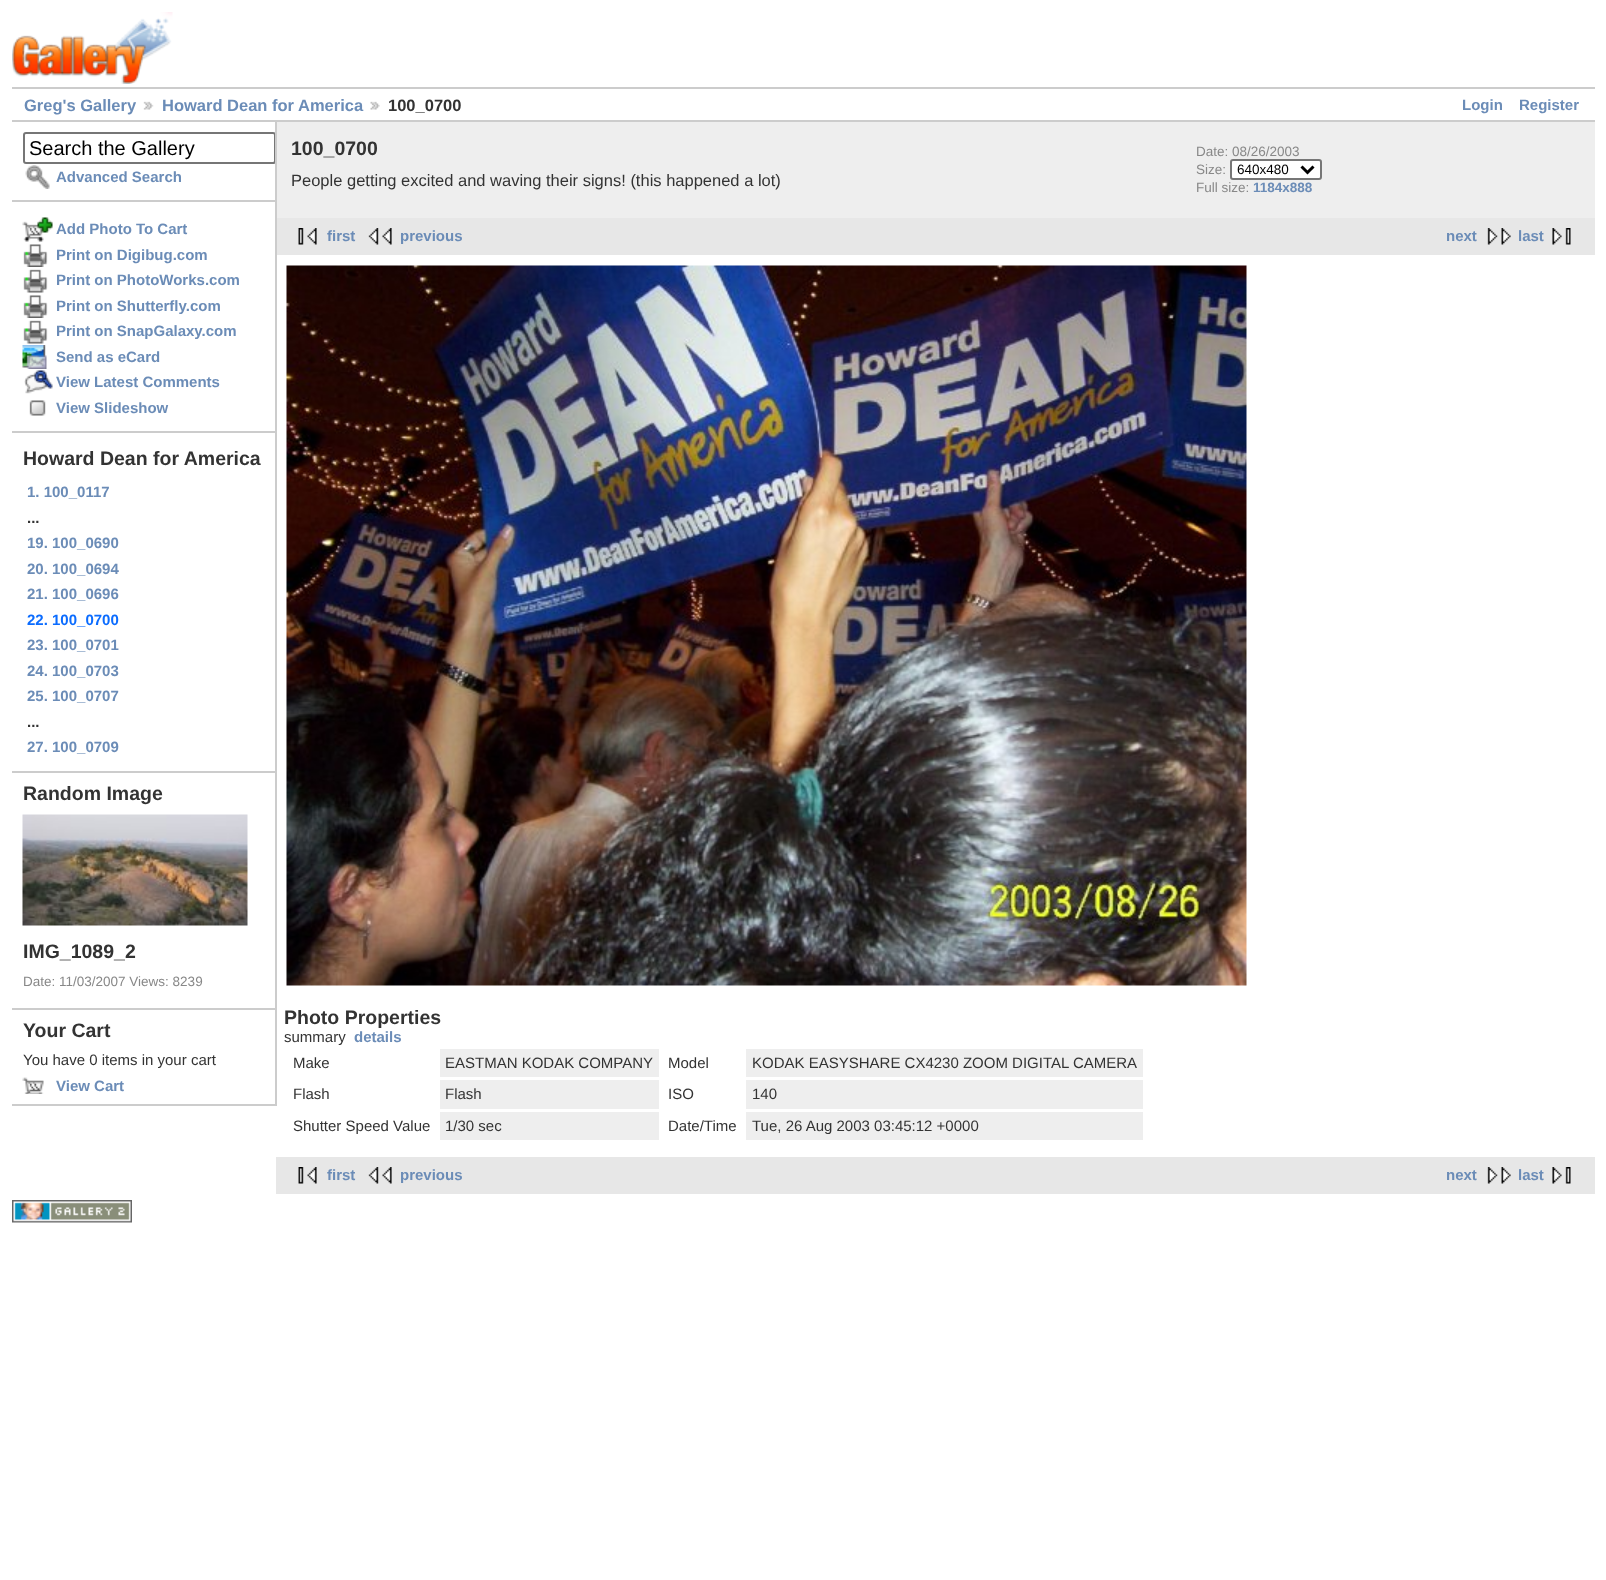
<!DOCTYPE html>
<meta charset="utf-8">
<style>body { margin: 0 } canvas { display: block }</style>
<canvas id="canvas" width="1606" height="1580"></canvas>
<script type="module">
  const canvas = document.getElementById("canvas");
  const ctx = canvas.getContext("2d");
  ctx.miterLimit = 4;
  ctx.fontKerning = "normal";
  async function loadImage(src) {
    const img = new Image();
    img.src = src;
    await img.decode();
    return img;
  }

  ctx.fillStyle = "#ffffff";
  ctx.fillRect(0, 0, 1606, 1580);
  ctx.drawImage(await loadImage("img1.png"), 12, 12, 161, 72);
  ctx.fillStyle = "#cccccc";
  ctx.fillRect(12, 87, 1583, 2);
  ctx.fillRect(12, 120, 1583, 2);
  ctx.font = "bold 16.5px Liberation Sans";
  ctx.fillStyle = "#6b8cb7";
  ctx.fillText("Greg's Gallery", 24, 111);
  ctx.drawImage(await loadImage("img2.png"), 143, 101, 11, 9);
  ctx.fillText("Howard Dean for America", 162, 111);
  ctx.drawImage(await loadImage("img3.png"), 370, 101, 10, 9);
  ctx.fillStyle = "#333333";
  ctx.fillText("100_0700", 388, 111);
  ctx.font = "bold 15px Liberation Sans";
  ctx.fillStyle = "#6b8cb7";
  ctx.fillText("Login", 1462, 110);
  ctx.fillText("Register", 1519, 110);
  ctx.fillStyle = "#cccccc";
  ctx.fillRect(275, 122, 2, 984);
  ctx.fillRect(12, 200, 263, 2);
  ctx.save();
  ctx.beginPath();
  ctx.rect(12, 122, 263, 984);
  ctx.clip();
  ctx.beginPath();
  ctx.roundRect(24, 133, 251, 30, 2);
  ctx.strokeStyle = "#767676";
  ctx.lineWidth = 2;
  ctx.stroke();
  ctx.restore();
  ctx.font = "20px Liberation Sans";
  ctx.fillStyle = "#000000";
  ctx.fillText("Search the Gallery", 29, 155);
  ctx.drawImage(await loadImage("img4.png"), 25, 165, 25, 24);
  ctx.font = "bold 15px Liberation Sans";
  ctx.fillStyle = "#6b8cb7";
  ctx.fillText("Advanced Search", 56, 182);
  ctx.fillStyle = "#cccccc";
  ctx.fillRect(12, 431, 263, 2);
  ctx.drawImage(await loadImage("img5.png"), 22, 217, 31, 25);
  ctx.fillStyle = "#6b8cb7";
  ctx.fillText("Add Photo To Cart", 56, 234);
  ctx.drawImage(await loadImage("img6.png"), 23, 244, 25, 23);
  ctx.fillText("Print on Digibug.com", 56, 260);
  ctx.drawImage(await loadImage("img7.png"), 23, 269, 25, 24);
  ctx.fillText("Print on PhotoWorks.com", 56, 285);
  ctx.drawImage(await loadImage("img6.png"), 23, 295, 25, 23);
  ctx.fillText("Print on Shutterfly.com", 56, 311);
  ctx.drawImage(await loadImage("img7.png"), 23, 320, 25, 24);
  ctx.fillText("Print on SnapGalaxy.com", 56, 336);
  ctx.drawImage(await loadImage("img8.png"), 22, 345, 25, 24);
  ctx.fillText("Send as eCard", 56, 362);
  ctx.drawImage(await loadImage("img9.png"), 24, 370, 29, 24);
  ctx.fillText("View Latest Comments", 56, 387);
  ctx.drawImage(await loadImage("img10.png"), 29, 400, 17, 16);
  ctx.fillText("View Slideshow", 56, 413);
  ctx.fillStyle = "#cccccc";
  ctx.fillRect(12, 771, 263, 2);
  ctx.font = "bold 19.5px Liberation Sans";
  ctx.fillStyle = "#333333";
  ctx.fillText("Howard Dean for America", 23, 465);
  ctx.font = "bold 15px Liberation Sans";
  ctx.fillStyle = "#6b8cb7";
  ctx.fillText("1. 100_0117", 27, 497);
  ctx.fillStyle = "#333333";
  ctx.fillText("...", 27, 523);
  ctx.fillStyle = "#6b8cb7";
  ctx.fillText("19. 100_0690", 27, 548);
  ctx.fillText("20. 100_0694", 27, 574);
  ctx.fillText("21. 100_0696", 27, 599);
  ctx.fillStyle = "#0b6cff";
  ctx.fillText("22. 100_0700", 27, 625);
  ctx.fillStyle = "#6b8cb7";
  ctx.fillText("23. 100_0701", 27, 650);
  ctx.fillText("24. 100_0703", 27, 676);
  ctx.fillText("25. 100_0707", 27, 701);
  ctx.fillStyle = "#333333";
  ctx.fillText("...", 27, 727);
  ctx.fillStyle = "#6b8cb7";
  ctx.fillText("27. 100_0709", 27, 752);
  ctx.fillStyle = "#cccccc";
  ctx.fillRect(12, 1008, 263, 2);
  ctx.font = "bold 19.5px Liberation Sans";
  ctx.fillStyle = "#333333";
  ctx.fillText("Random Image", 23, 800);
  ctx.drawImage(await loadImage("img11.png"), 22, 814, 226, 112);
  ctx.fillText("IMG_1089_2", 23, 958);
  ctx.font = "13.5px Liberation Sans";
  ctx.fillStyle = "#888888";
  ctx.fillText("Date: 11/03/2007 Views: 8239", 23, 986);
  ctx.fillStyle = "#cccccc";
  ctx.fillRect(12, 1104, 263, 2);
  ctx.font = "bold 19.5px Liberation Sans";
  ctx.fillStyle = "#333333";
  ctx.fillText("Your Cart", 23, 1037);
  ctx.font = "15px Liberation Sans";
  ctx.fillText("You have 0 items in your cart", 23, 1065);
  ctx.drawImage(await loadImage("img12.png"), 22, 1077, 22, 17);
  ctx.font = "bold 15px Liberation Sans";
  ctx.fillStyle = "#6b8cb7";
  ctx.fillText("View Cart", 56, 1091);
  ctx.fillStyle = "#eeeeee";
  ctx.fillRect(277, 122, 1318, 96);
  ctx.font = "bold 19.5px Liberation Sans";
  ctx.fillStyle = "#333333";
  ctx.fillText("100_0700", 291, 155);
  ctx.font = "16.5px Liberation Sans";
  ctx.fillText("People getting excited and waving their signs! (this happened a lot)", 291, 186);
  ctx.font = "13.5px Liberation Sans";
  ctx.fillStyle = "#888888";
  ctx.fillText("Date: 08/26/2003", 1196, 156);
  ctx.fillText("Size:", 1196, 174);
  ctx.fillStyle = "#ffffff";
  ctx.beginPath();
  ctx.roundRect(1231, 160, 90, 19, 2);
  ctx.fill();
  ctx.strokeStyle = "#767676";
  ctx.lineWidth = 2;
  ctx.stroke();
  ctx.beginPath();
  ctx.moveTo(1301.5, 166.5);
  ctx.lineTo(1307.5, 172.5);
  ctx.lineTo(1313.5, 166.5);
  ctx.strokeStyle = "#000000";
  ctx.lineWidth = 3;
  ctx.stroke();
  ctx.fillStyle = "#000000";
  ctx.fillText("640x480", 1237, 174);
  ctx.fillStyle = "#888888";
  ctx.fillText("Full size:", 1196, 192);
  ctx.font = "bold 13.5px Liberation Sans";
  ctx.fillStyle = "#6b8cb7";
  ctx.fillText("1184x888", 1253, 192);
  ctx.fillStyle = "#e7e7e7";
  ctx.fillRect(277, 218, 1318, 37);
  ctx.drawImage(await loadImage("img13.png"), 298, 228, 19, 17);
  ctx.font = "bold 15px Liberation Sans";
  ctx.fillStyle = "#6b8cb7";
  ctx.fillText("first", 327, 241);
  ctx.drawImage(await loadImage("img14.png"), 368, 228, 24, 17);
  ctx.fillText("previous", 400, 241);
  ctx.fillText("next", 1446, 241);
  ctx.drawImage(await loadImage("img15.png"), 1487, 228, 24, 17);
  ctx.fillText("last", 1518, 241);
  ctx.drawImage(await loadImage("img16.png"), 1552, 228, 19, 17);
  ctx.drawImage(await loadImage("img17.png"), 286, 265, 961, 721);
  ctx.font = "bold 19.5px Liberation Sans";
  ctx.fillStyle = "#333333";
  ctx.fillText("Photo Properties", 284, 1024);
  ctx.font = "15px Liberation Sans";
  ctx.fillText("summary", 284, 1042);
  ctx.font = "bold 15px Liberation Sans";
  ctx.fillStyle = "#6b8cb7";
  ctx.fillText("details", 354, 1042);
  ctx.font = "15px Liberation Sans";
  ctx.fillStyle = "#333333";
  ctx.fillText("Make", 293, 1068);
  ctx.fillStyle = "#eeeeee";
  ctx.fillRect(440, 1049, 219, 28);
  ctx.fillStyle = "#333333";
  ctx.fillText("EASTMAN KODAK COMPANY", 445, 1068);
  ctx.fillText("Model", 668, 1068);
  ctx.fillStyle = "#eeeeee";
  ctx.fillRect(746, 1049, 397, 28);
  ctx.fillStyle = "#333333";
  ctx.fillText("KODAK EASYSHARE CX4230 ZOOM DIGITAL CAMERA", 752, 1068);
  ctx.fillText("Flash", 293, 1099);
  ctx.fillStyle = "#eeeeee";
  ctx.fillRect(440, 1080, 219, 29);
  ctx.fillStyle = "#333333";
  ctx.fillText("Flash", 445, 1099);
  ctx.fillText("ISO", 668, 1099);
  ctx.fillStyle = "#eeeeee";
  ctx.fillRect(746, 1080, 397, 29);
  ctx.fillStyle = "#333333";
  ctx.fillText("140", 752, 1099);
  ctx.fillText("Shutter Speed Value", 293, 1131);
  ctx.fillStyle = "#eeeeee";
  ctx.fillRect(440, 1112, 219, 28);
  ctx.fillStyle = "#333333";
  ctx.fillText("1/30 sec", 445, 1131);
  ctx.fillText("Date/Time", 668, 1131);
  ctx.fillStyle = "#eeeeee";
  ctx.fillRect(746, 1112, 397, 28);
  ctx.fillStyle = "#333333";
  ctx.fillText("Tue, 26 Aug 2003 03:45:12 +0000", 752, 1131);
  ctx.fillStyle = "#e7e7e7";
  ctx.fillRect(276, 1157, 1319, 37);
  ctx.drawImage(await loadImage("img13.png"), 298, 1167, 19, 17);
  ctx.font = "bold 15px Liberation Sans";
  ctx.fillStyle = "#6b8cb7";
  ctx.fillText("first", 327, 1180);
  ctx.drawImage(await loadImage("img14.png"), 368, 1167, 24, 17);
  ctx.fillText("previous", 400, 1180);
  ctx.fillText("next", 1446, 1180);
  ctx.drawImage(await loadImage("img15.png"), 1487, 1167, 24, 17);
  ctx.fillText("last", 1518, 1180);
  ctx.drawImage(await loadImage("img16.png"), 1552, 1167, 19, 17);
  ctx.drawImage(await loadImage("img18.png"), 12, 1200, 120, 23);
</script>
